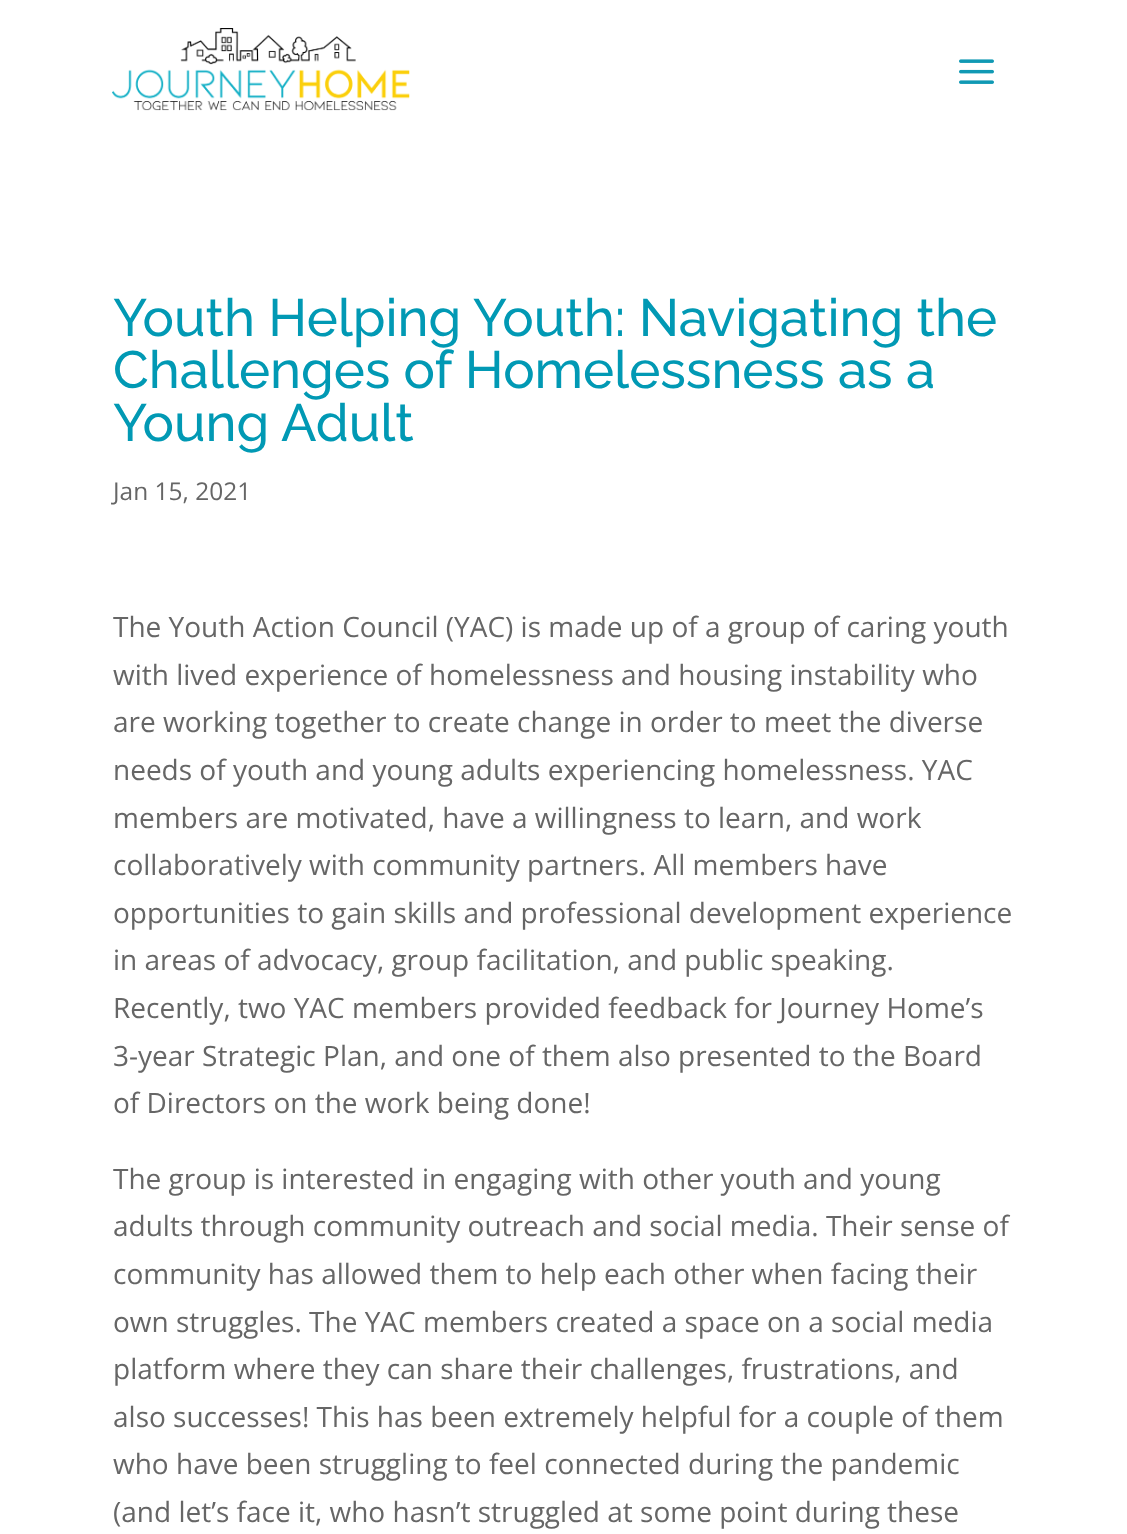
<!DOCTYPE html>
<meta charset="utf-8">
<style>body { margin: 0 } canvas { display: block }</style>
<canvas id="canvas" width="1127" height="1534"></canvas>
<script type="module">
  const canvas = document.getElementById("canvas");
  const ctx = canvas.getContext("2d");
  ctx.miterLimit = 4;
  ctx.fontKerning = "normal";
  async function loadImage(src) {
    const img = new Image();
    img.src = src;
    await img.decode();
    return img;
  }

  ctx.fillStyle = "#ffffff";
  ctx.fillRect(0, 0, 1127, 1534);
  ctx.drawImage(await loadImage("img1.png"), 112, 28, 298, 83);
  ctx.drawImage(await loadImage("img2.png"), 959, 59, 35, 25);
  ctx.font = "100 52.5px Raleway";
  ctx.fillStyle = "#0199b4";
  ctx.fillText("Youth Helping Youth: Navigating the", 113, 336);
  ctx.fillText("Challenges of Homelessness as a", 113, 388);
  ctx.fillText("Young Adult", 113, 441);
  ctx.font = "24.5px Open Sans";
  ctx.fillStyle = "#666666";
  ctx.fillText("Jan 15, 2021", 113, 500);
  ctx.font = "28px Open Sans";
  ctx.fillText("The Youth Action Council (YAC) is made up of a group of caring youth", 113, 637);
  ctx.fillText("with lived experience of homelessness and housing instability who", 113, 685);
  ctx.fillText("are working together to create change in order to meet the diverse", 113, 732);
  ctx.fillText("needs of youth and young adults experiencing homelessness. YAC", 113, 780);
  ctx.fillText("members are motivated, have a willingness to learn, and work", 113, 828);
  ctx.fillText("collaboratively with community partners. All members have", 113, 875);
  ctx.fillText("opportunities to gain skills and professional development experience", 113, 923);
  ctx.fillText("in areas of advocacy, group facilitation, and public speaking.", 113, 970);
  ctx.fillText("Recently, two YAC members provided feedback for Journey Home’s", 113, 1018);
  ctx.fillText("3-year Strategic Plan, and one of them also presented to the Board", 113, 1066);
  ctx.fillText("of Directors on the work being done!", 113, 1113);
  ctx.fillText("The group is interested in engaging with other youth and young", 113, 1189);
  ctx.fillText("adults through community outreach and social media. Their sense of", 113, 1236);
  ctx.fillText("community has allowed them to help each other when facing their", 113, 1284);
  ctx.fillText("own struggles. The YAC members created a space on a social media", 113, 1332);
  ctx.fillText("platform where they can share their challenges, frustrations, and", 113, 1379);
  ctx.fillText("also successes! This has been extremely helpful for a couple of them", 113, 1427);
  ctx.fillText("who have been struggling to feel connected during the pandemic", 113, 1474);
  ctx.fillText("(and let’s face it, who hasn’t struggled at some point during these", 113, 1522);
</script>
